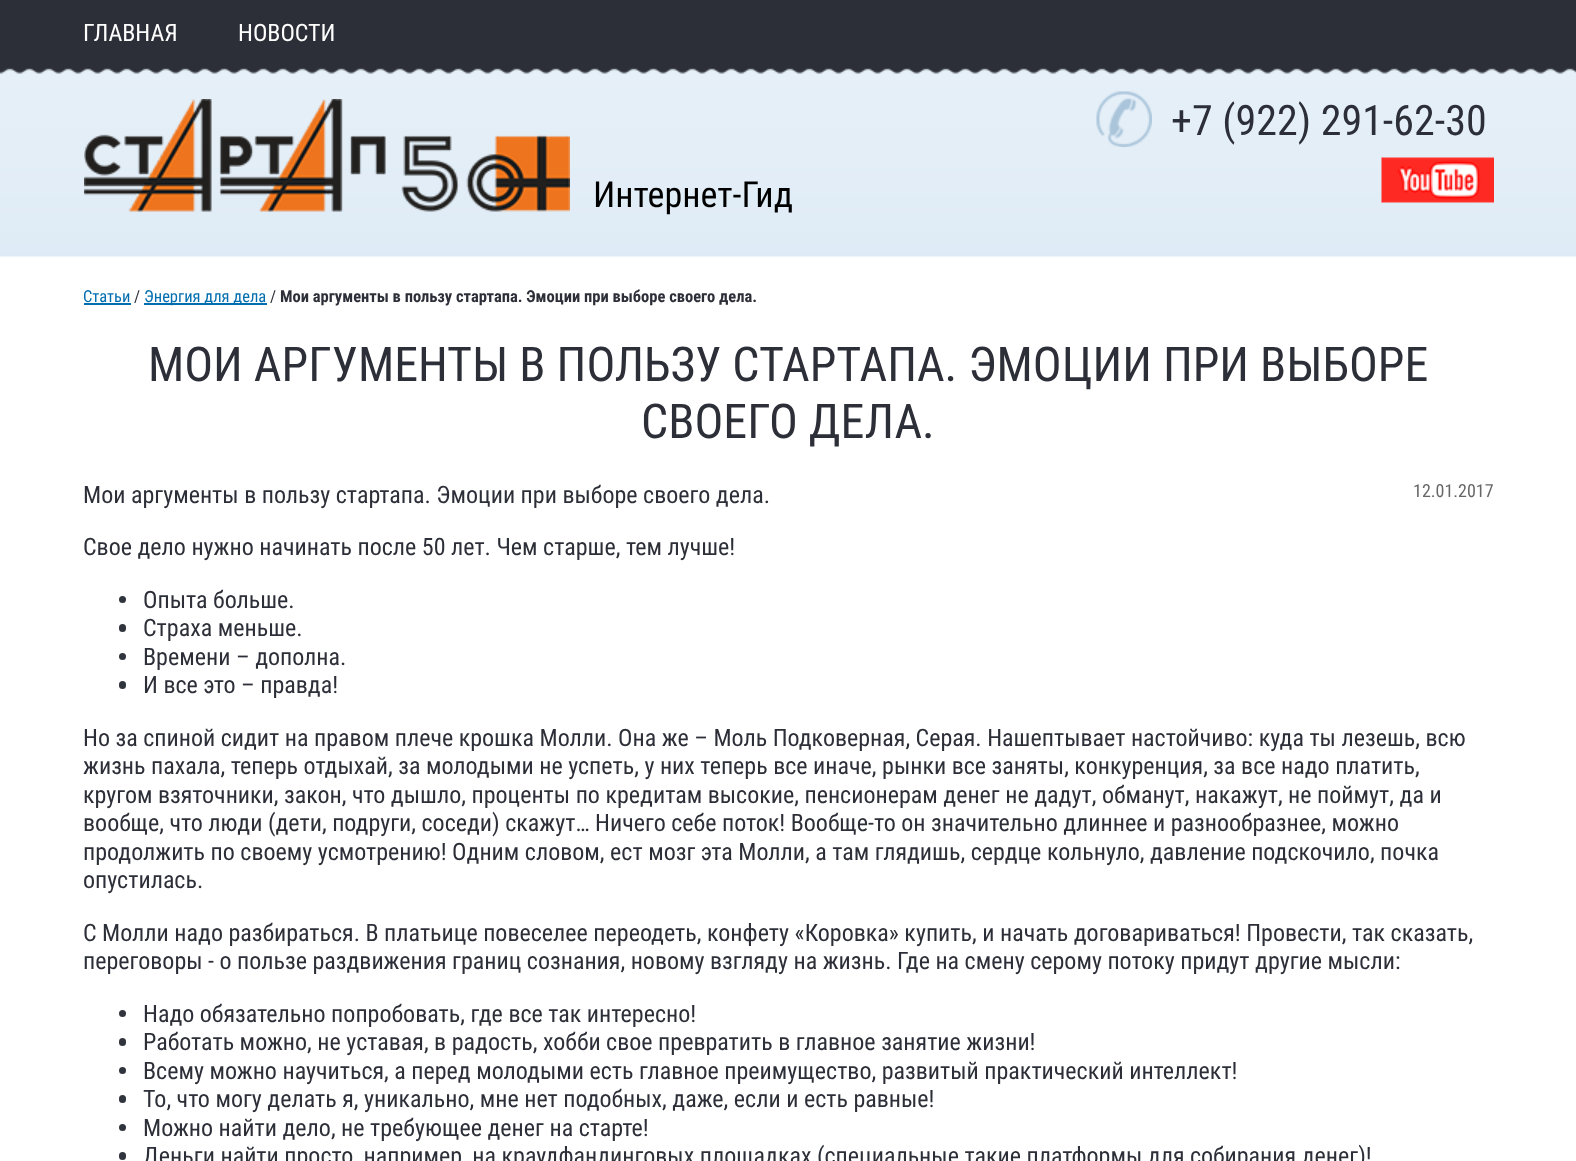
<!DOCTYPE html>
<meta charset="utf-8">
<style>body { margin: 0 } canvas { display: block }</style>
<canvas id="canvas" width="1576" height="1161"></canvas>
<script type="module">
  const canvas = document.getElementById("canvas");
  const ctx = canvas.getContext("2d");
  ctx.miterLimit = 4;
  ctx.fontKerning = "normal";
  async function loadImage(src) {
    const img = new Image();
    img.src = src;
    await img.decode();
    return img;
  }

  ctx.fillStyle = "#ffffff";
  ctx.fillRect(0, 0, 1576, 1161);
  ctx.drawImage(await loadImage("img1.png"), 0, 0, 1576, 257);
  ctx.font = "24px Roboto Condensed";
  ctx.fillText("ГЛАВНАЯ", 83, 41);
  ctx.fillText("НОВОСТИ", 238, 41);
  ctx.drawImage(await loadImage("img2.png"), 84, 99, 486, 113);
  ctx.drawImage(await loadImage("img3.png"), 1096, 91, 56, 56);
  ctx.font = "42px Roboto Condensed";
  ctx.fillStyle = "#2d2f38";
  ctx.fillText("+7 (922) 291-62-30", 1171, 135);
  ctx.drawImage(await loadImage("img4.png"), 1381, 157, 113, 46);
  ctx.font = "36px Roboto Condensed";
  ctx.fillStyle = "#000000";
  ctx.fillText("Интернет-Гид", 593, 207);
  ctx.font = "16.5px Roboto Condensed";
  ctx.fillStyle = "#006dae";
  ctx.fillText("Статьи", 83, 302);
  ctx.fillRect(84, 303, 47, 2);
  ctx.fillStyle = "#2d2f38";
  ctx.fillText("/", 134, 302);
  ctx.fillStyle = "#006dae";
  ctx.fillRect(144, 303, 123, 2);
  ctx.fillText("Энергия для дела", 144, 302);
  ctx.fillStyle = "#2d2f38";
  ctx.fillText("/", 270, 302);
  ctx.font = "bold 16.5px Roboto Condensed";
  ctx.fillText("Мои аргументы в пользу стартапа. Эмоции при выборе своего дела.", 280, 302);
  ctx.font = "48px Roboto Condensed";
  ctx.fillText("МОИ АРГУМЕНТЫ В ПОЛЬЗУ СТАРТАПА. ЭМОЦИИ ПРИ ВЫБОРЕ", 148, 381);
  ctx.fillText("СВОЕГО ДЕЛА.", 641, 438);
  ctx.font = "24px Roboto Condensed";
  ctx.fillText("Мои аргументы в пользу стартапа. Эмоции при выборе своего дела.", 83, 503);
  ctx.font = "18px Roboto Condensed";
  ctx.fillStyle = "#666666";
  ctx.fillText("12.01.2017", 1413, 497);
  ctx.font = "24px Roboto Condensed";
  ctx.fillStyle = "#2d2f38";
  ctx.fillText("Свое дело нужно начинать после 50 лет. Чем старше, тем лучше!", 83, 555);
  ctx.fillStyle = "#30343d";
  ctx.beginPath();
  ctx.arc(122.5, 599.5, 3.5, 0, Math.PI * 2);
  ctx.fill();
  ctx.fillStyle = "#2d2f38";
  ctx.fillText("Опыта больше.", 143, 608);
  ctx.fillStyle = "#30343d";
  ctx.beginPath();
  ctx.roundRect(119, 624, 7, 8, 3.5);
  ctx.fill();
  ctx.fillStyle = "#2d2f38";
  ctx.fillText("Страха меньше.", 143, 636);
  ctx.fillStyle = "#30343d";
  ctx.beginPath();
  ctx.arc(122.5, 656.5, 3.5, 0, Math.PI * 2);
  ctx.fill();
  ctx.fillStyle = "#2d2f38";
  ctx.fillText("Времени – дополна.", 143, 665);
  ctx.fillStyle = "#30343d";
  ctx.beginPath();
  ctx.roundRect(119, 681, 7, 8, 3.5);
  ctx.fill();
  ctx.fillStyle = "#2d2f38";
  ctx.fillText("И все это – правда!", 143, 693);
  ctx.fillText("Но за спиной сидит на правом плече крошка Молли. Она же – Моль Подковерная, Серая. Нашептывает настойчиво: куда ты лезешь, всю", 83, 746);
  ctx.fillText("жизнь пахала, теперь отдыхай, за молодыми не успеть, у них теперь все иначе, рынки все заняты, конкуренция, за все надо платить,", 83, 774);
  ctx.fillText("кругом взяточники, закон, что дышло, проценты по кредитам высокие, пенсионерам денег не дадут, обманут, накажут, не поймут, да и", 83, 803);
  ctx.fillText("вообще, что люди (дети, подруги, соседи) скажут… Ничего себе поток! Вообще-то он значительно длиннее и разнообразнее, можно", 83, 831);
  ctx.fillText("продолжить по своему усмотрению! Одним словом, ест мозг эта Молли, а там глядишь, сердце кольнуло, давление подскочило, почка", 83, 860);
  ctx.fillText("опустилась.", 83, 888);
  ctx.fillText("С Молли надо разбираться. В платьице повеселее переодеть, конфету «Коровка» купить, и начать договариваться! Провести, так сказать,", 83, 941);
  ctx.fillText("переговоры - о пользе раздвижения границ сознания, новому взгляду на жизнь. Где на смену серому потоку придут другие мысли:", 83, 969);
  ctx.fillStyle = "#30343d";
  ctx.beginPath();
  ctx.arc(122.5, 1013.5, 3.5, 0, Math.PI * 2);
  ctx.fill();
  ctx.fillStyle = "#2d2f38";
  ctx.fillText("Надо обязательно попробовать, где все так интересно!", 143, 1022);
  ctx.fillStyle = "#30343d";
  ctx.beginPath();
  ctx.roundRect(119, 1038, 7, 8, 3.5);
  ctx.fill();
  ctx.fillStyle = "#2d2f38";
  ctx.fillText("Работать можно, не уставая, в радость, хобби свое превратить в главное занятие жизни!", 143, 1050);
  ctx.fillStyle = "#30343d";
  ctx.beginPath();
  ctx.arc(122.5, 1070.5, 3.5, 0, Math.PI * 2);
  ctx.fill();
  ctx.fillStyle = "#2d2f38";
  ctx.fillText("Всему можно научиться, а перед молодыми есть главное преимущество, развитый практический интеллект!", 143, 1079);
  ctx.fillStyle = "#30343d";
  ctx.beginPath();
  ctx.roundRect(119, 1095, 7, 8, 3.5);
  ctx.fill();
  ctx.fillStyle = "#2d2f38";
  ctx.fillText("То, что могу делать я, уникально, мне нет подобных, даже, если и есть равные!", 143, 1107);
  ctx.fillStyle = "#30343d";
  ctx.beginPath();
  ctx.arc(122.5, 1127.5, 3.5, 0, Math.PI * 2);
  ctx.fill();
  ctx.fillStyle = "#2d2f38";
  ctx.fillText("Можно найти дело, не требующее денег на старте!", 143, 1136);
  ctx.fillStyle = "#30343d";
  ctx.beginPath();
  ctx.roundRect(119, 1152, 7, 8, 3.5);
  ctx.fill();
  ctx.fillStyle = "#2d2f38";
  ctx.fillText("Деньги найти просто, например, на краудфандинговых площадках (специальные такие платформы для собирания денег)!", 143, 1164);
</script>
